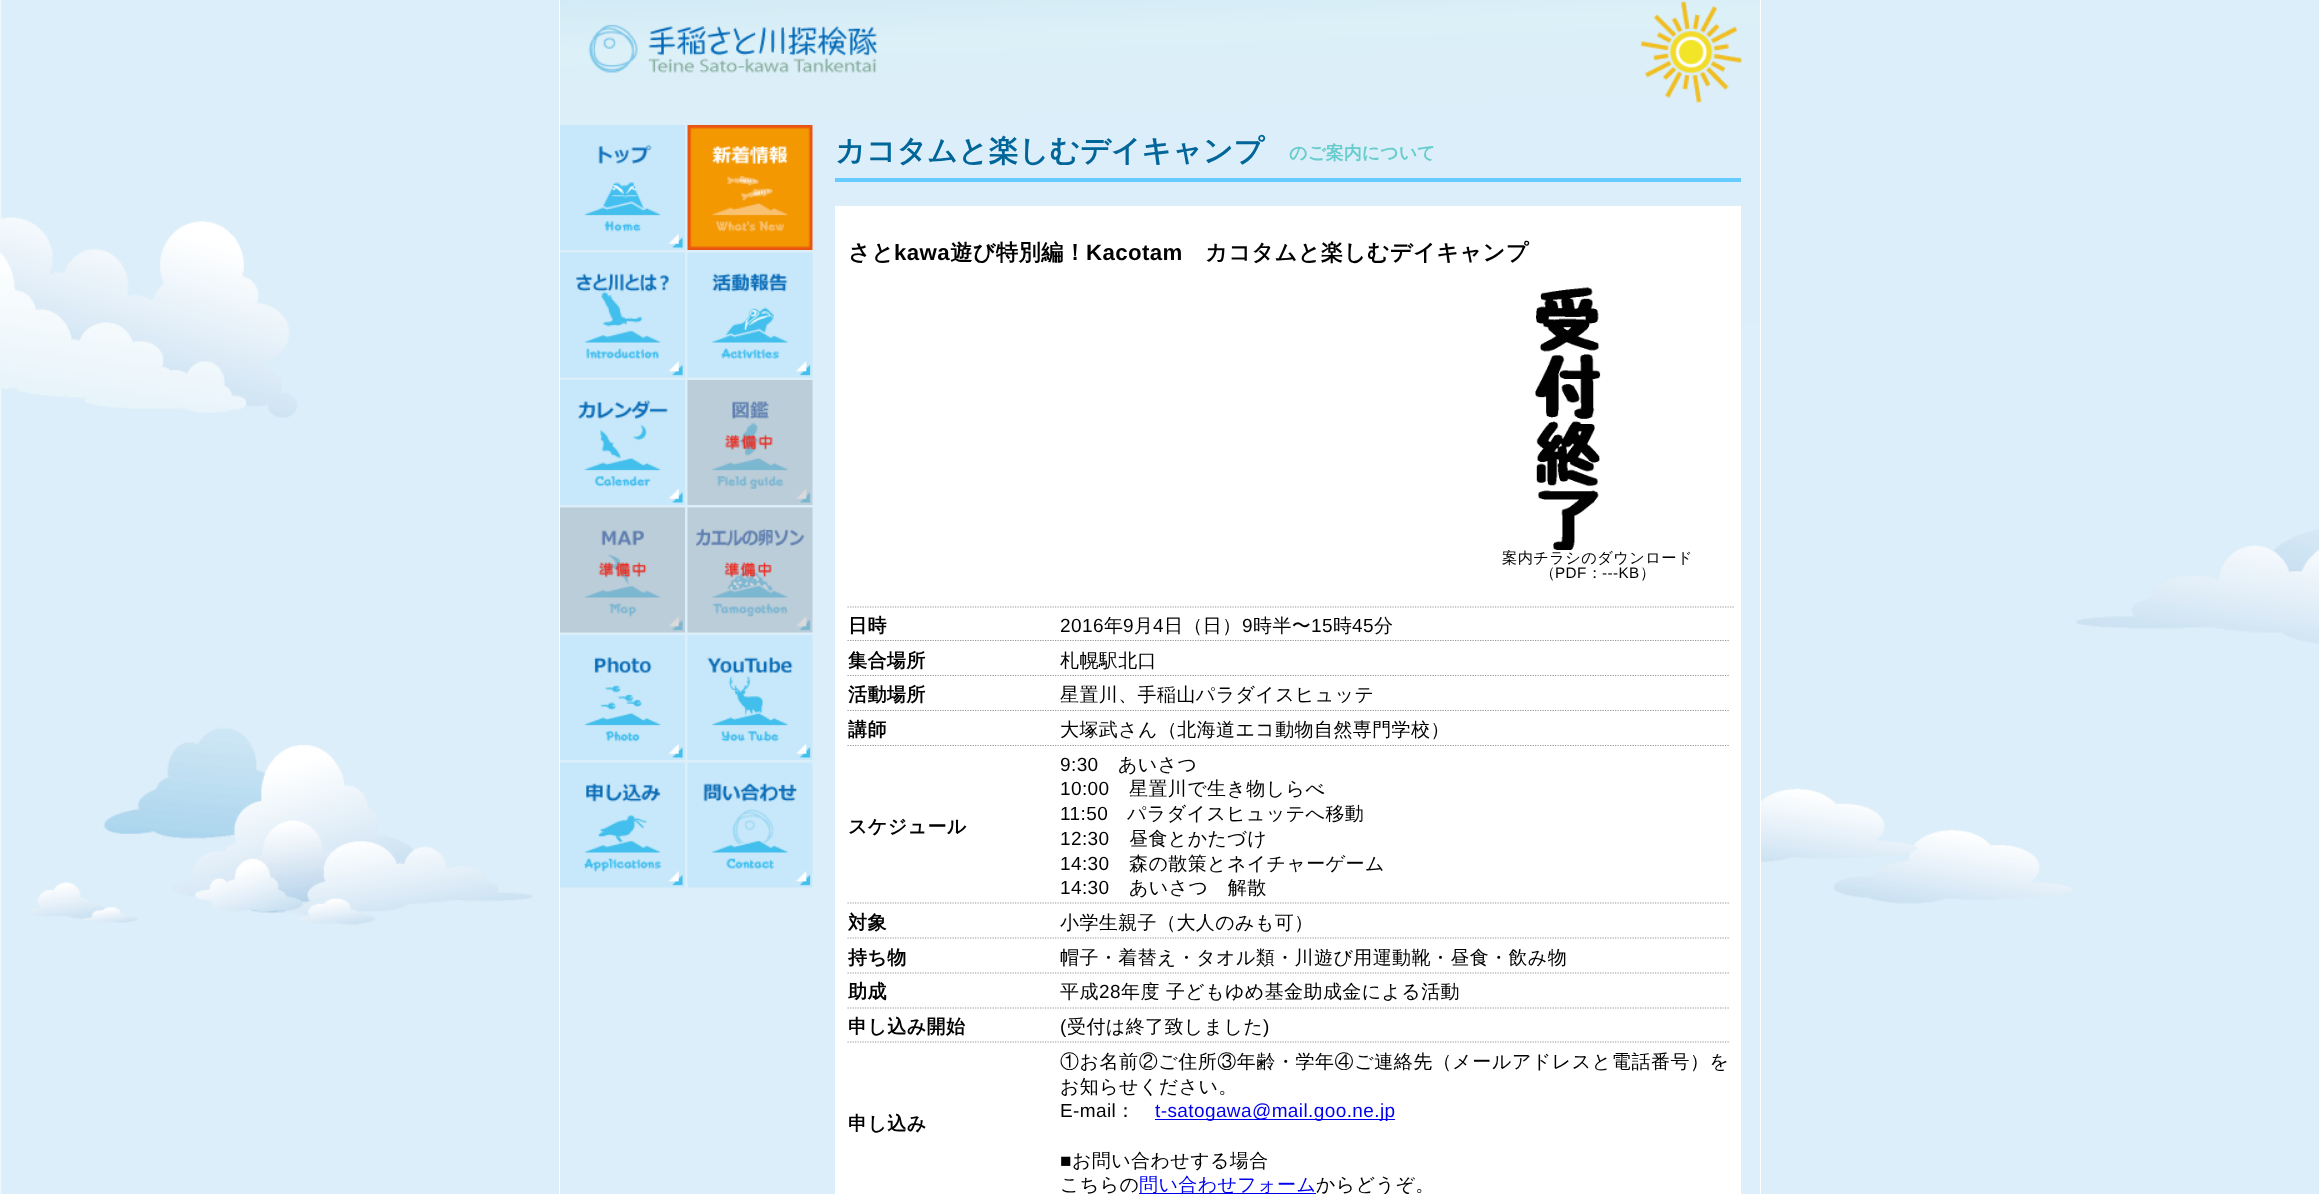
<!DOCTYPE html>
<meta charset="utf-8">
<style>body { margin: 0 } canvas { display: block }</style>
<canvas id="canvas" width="2319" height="1194"></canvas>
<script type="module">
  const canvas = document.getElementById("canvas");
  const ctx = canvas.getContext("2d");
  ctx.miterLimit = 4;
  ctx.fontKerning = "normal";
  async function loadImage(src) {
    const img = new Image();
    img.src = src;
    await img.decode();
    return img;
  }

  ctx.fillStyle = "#ffffff";
  ctx.fillRect(0, 0, 2319, 1194);
  ctx.drawImage(await loadImage("img1.png"), 0, 0, 2319, 1194);
  ctx.fillStyle = "#dceffa";
  ctx.fillRect(1210, 325, 550, 869);
  ctx.fillStyle = "#ffffff";
  ctx.fillRect(1760, 0, 1, 1194);
  ctx.fillRect(559, 0, 1, 1194);
  ctx.drawImage(await loadImage("img2.png"), 560, 0, 1200, 125);
  ctx.drawImage(await loadImage("img3.png"), 560, 125, 125, 125);
  ctx.drawImage(await loadImage("img4.png"), 687, 125, 126, 125);
  ctx.drawImage(await loadImage("img5.png"), 560, 252, 125, 126);
  ctx.drawImage(await loadImage("img6.png"), 687, 252, 126, 126);
  ctx.drawImage(await loadImage("img7.png"), 560, 380, 125, 125);
  ctx.drawImage(await loadImage("img8.png"), 687, 380, 126, 125);
  ctx.drawImage(await loadImage("img9.png"), 560, 507, 125, 126);
  ctx.drawImage(await loadImage("img10.png"), 687, 507, 126, 126);
  ctx.drawImage(await loadImage("img11.png"), 560, 635, 125, 125);
  ctx.drawImage(await loadImage("img12.png"), 687, 635, 126, 125);
  ctx.drawImage(await loadImage("img13.png"), 560, 762, 125, 126);
  ctx.drawImage(await loadImage("img14.png"), 687, 762, 126, 126);
  ctx.fillStyle = "#66ccff";
  ctx.fillRect(835, 178, 906, 4);
  ctx.font = "bold 30px WenQuanYi Zen Hei";
  ctx.fillStyle = "#006699";
  ctx.fillText("カコタムと楽しむデイキャンプ", 835, 161);
  ctx.font = "bold 18px WenQuanYi Zen Hei";
  ctx.fillStyle = "#66cccc";
  ctx.fillText("のご案内について", 1289, 159);
  ctx.fillStyle = "#ffffff";
  ctx.fillRect(835, 206, 906, 988);
  ctx.letterSpacing = "0.4px";
  ctx.font = "bold 22.25px WenQuanYi Zen Hei";
  ctx.fillStyle = "#000000";
  ctx.fillText("さと", 848, 260);
  ctx.font = "bold 22.25px Liberation Sans";
  ctx.fillText("kawa", 894, 260);
  ctx.font = "bold 22.25px WenQuanYi Zen Hei";
  ctx.fillText("遊び特別編！", 950, 260);
  ctx.font = "bold 22.25px Liberation Sans";
  ctx.fillText("Kacotam", 1086, 260);
  ctx.font = "bold 22.25px WenQuanYi Zen Hei";
  ctx.fillText("カコタムと楽しむデイキャンプ", 1205, 260);
  ctx.beginPath();
  ctx.moveTo(1460, 607);
  ctx.lineTo(1735, 607);
  ctx.strokeStyle = "#999999";
  ctx.lineWidth = 1.2;
  ctx.setLineDash([1.25, 1.25]);
  ctx.stroke();
  ctx.drawImage(await loadImage("img15.png"), 1535, 287, 66, 263);
  ctx.font = "500 15.25px WenQuanYi Zen Hei";
  ctx.fillText("案内チラシのダウンロード", 1502, 563);
  ctx.fillText("（", 1540, 578);
  ctx.font = "15.25px Liberation Sans";
  ctx.fillText("PDF", 1555, 578);
  ctx.font = "500 15.25px WenQuanYi Zen Hei";
  ctx.fillText("：", 1587, 578);
  ctx.font = "15.25px Liberation Sans";
  ctx.fillText("---KB", 1602, 578);
  ctx.font = "500 15.25px WenQuanYi Zen Hei";
  ctx.fillText("）", 1640, 578);
  ctx.beginPath();
  ctx.moveTo(847.5, 607);
  ctx.lineTo(1460, 607);
  ctx.stroke();
  ctx.beginPath();
  ctx.moveTo(847.5, 640.5);
  ctx.lineTo(1060, 640.5);
  ctx.stroke();
  ctx.font = "bold 19px WenQuanYi Zen Hei";
  ctx.fillText("日時", 848, 632);
  ctx.beginPath();
  ctx.moveTo(1060, 640.5);
  ctx.lineTo(1729, 640.5);
  ctx.stroke();
  ctx.font = "19px Liberation Sans";
  ctx.fillText("2016", 1060, 632);
  ctx.font = "500 19px WenQuanYi Zen Hei";
  ctx.fillText("年", 1104, 632);
  ctx.font = "19px Liberation Sans";
  ctx.fillText("9", 1123, 632);
  ctx.font = "500 19px WenQuanYi Zen Hei";
  ctx.fillText("月", 1134, 632);
  ctx.font = "19px Liberation Sans";
  ctx.fillText("4", 1153, 632);
  ctx.font = "500 19px WenQuanYi Zen Hei";
  ctx.fillText("日（日）", 1164, 632);
  ctx.font = "19px Liberation Sans";
  ctx.fillText("9", 1242, 632);
  ctx.font = "500 19px WenQuanYi Zen Hei";
  ctx.fillText("時半〜", 1253, 632);
  ctx.font = "19px Liberation Sans";
  ctx.fillText("15", 1311, 632);
  ctx.font = "500 19px WenQuanYi Zen Hei";
  ctx.fillText("時", 1333, 632);
  ctx.font = "19px Liberation Sans";
  ctx.fillText("45", 1352, 632);
  ctx.font = "500 19px WenQuanYi Zen Hei";
  ctx.fillText("分", 1374, 632);
  ctx.beginPath();
  ctx.moveTo(847.5, 675.5);
  ctx.lineTo(1060, 675.5);
  ctx.stroke();
  ctx.font = "bold 19px WenQuanYi Zen Hei";
  ctx.fillText("集合場所", 848, 667);
  ctx.beginPath();
  ctx.moveTo(1060, 675.5);
  ctx.lineTo(1729, 675.5);
  ctx.stroke();
  ctx.font = "500 19px WenQuanYi Zen Hei";
  ctx.fillText("札幌駅北口", 1060, 667);
  ctx.beginPath();
  ctx.moveTo(847.5, 710.5);
  ctx.lineTo(1060, 710.5);
  ctx.stroke();
  ctx.font = "bold 19px WenQuanYi Zen Hei";
  ctx.fillText("活動場所", 848, 701);
  ctx.beginPath();
  ctx.moveTo(1060, 710.5);
  ctx.lineTo(1729, 710.5);
  ctx.stroke();
  ctx.font = "500 19px WenQuanYi Zen Hei";
  ctx.fillText("星置川、手稲山パラダイスヒュッテ", 1060, 701);
  ctx.beginPath();
  ctx.moveTo(847.5, 745.5);
  ctx.lineTo(1060, 745.5);
  ctx.stroke();
  ctx.font = "bold 19px WenQuanYi Zen Hei";
  ctx.fillText("講師", 848, 736);
  ctx.beginPath();
  ctx.moveTo(1060, 745.5);
  ctx.lineTo(1729, 745.5);
  ctx.stroke();
  ctx.font = "500 19px WenQuanYi Zen Hei";
  ctx.fillText("大塚武さん（北海道エコ動物自然専門学校）", 1060, 736);
  ctx.beginPath();
  ctx.moveTo(847.5, 903);
  ctx.lineTo(1060, 903);
  ctx.stroke();
  ctx.font = "bold 19px WenQuanYi Zen Hei";
  ctx.fillText("スケジュール", 848, 833);
  ctx.beginPath();
  ctx.moveTo(1060, 903);
  ctx.lineTo(1729, 903);
  ctx.stroke();
  ctx.font = "19px Liberation Sans";
  ctx.fillText("9:30", 1060, 771);
  ctx.font = "500 19px WenQuanYi Zen Hei";
  ctx.fillText("あいさつ", 1118, 771);
  ctx.font = "19px Liberation Sans";
  ctx.fillText("10:00", 1060, 795);
  ctx.font = "500 19px WenQuanYi Zen Hei";
  ctx.fillText("星置川で生き物しらべ", 1129, 795);
  ctx.font = "19px Liberation Sans";
  ctx.fillText("11:50", 1060, 820);
  ctx.font = "500 19px WenQuanYi Zen Hei";
  ctx.fillText("パラダイスヒュッテへ移動", 1127, 820);
  ctx.font = "19px Liberation Sans";
  ctx.fillText("12:30", 1060, 845);
  ctx.font = "500 19px WenQuanYi Zen Hei";
  ctx.fillText("昼食とかたづけ", 1129, 845);
  ctx.font = "19px Liberation Sans";
  ctx.fillText("14:30", 1060, 870);
  ctx.font = "500 19px WenQuanYi Zen Hei";
  ctx.fillText("森の散策とネイチャーゲーム", 1129, 870);
  ctx.font = "19px Liberation Sans";
  ctx.fillText("14:30", 1060, 894);
  ctx.font = "500 19px WenQuanYi Zen Hei";
  ctx.fillText("あいさつ　解散", 1129, 894);
  ctx.beginPath();
  ctx.moveTo(847.5, 938);
  ctx.lineTo(1060, 938);
  ctx.stroke();
  ctx.font = "bold 19px WenQuanYi Zen Hei";
  ctx.fillText("対象", 848, 929);
  ctx.beginPath();
  ctx.moveTo(1060, 938);
  ctx.lineTo(1729, 938);
  ctx.stroke();
  ctx.font = "500 19px WenQuanYi Zen Hei";
  ctx.fillText("小学生親子（大人のみも可）", 1060, 929);
  ctx.beginPath();
  ctx.moveTo(847.5, 973);
  ctx.lineTo(1060, 973);
  ctx.stroke();
  ctx.font = "bold 19px WenQuanYi Zen Hei";
  ctx.fillText("持ち物", 848, 964);
  ctx.beginPath();
  ctx.moveTo(1060, 973);
  ctx.lineTo(1729, 973);
  ctx.stroke();
  ctx.font = "500 19px WenQuanYi Zen Hei";
  ctx.fillText("帽子・着替え・タオル類・川遊び用運動靴・昼食・飲み物", 1060, 964);
  ctx.beginPath();
  ctx.moveTo(847.5, 1008);
  ctx.lineTo(1060, 1008);
  ctx.stroke();
  ctx.font = "bold 19px WenQuanYi Zen Hei";
  ctx.fillText("助成", 848, 998);
  ctx.beginPath();
  ctx.moveTo(1060, 1008);
  ctx.lineTo(1729, 1008);
  ctx.stroke();
  ctx.font = "500 19px WenQuanYi Zen Hei";
  ctx.fillText("平成", 1060, 998);
  ctx.font = "19px Liberation Sans";
  ctx.fillText("28", 1099, 998);
  ctx.font = "500 19px WenQuanYi Zen Hei";
  ctx.fillText("年度 子どもゆめ基金助成金による活動", 1121, 998);
  ctx.beginPath();
  ctx.moveTo(847.5, 1042);
  ctx.lineTo(1060, 1042);
  ctx.stroke();
  ctx.font = "bold 19px WenQuanYi Zen Hei";
  ctx.fillText("申し込み開始", 848, 1033);
  ctx.beginPath();
  ctx.moveTo(1060, 1042);
  ctx.lineTo(1729, 1042);
  ctx.stroke();
  ctx.font = "19px Liberation Sans";
  ctx.fillText("(", 1060, 1033);
  ctx.font = "500 19px WenQuanYi Zen Hei";
  ctx.fillText("受付は終了致しました", 1067, 1033);
  ctx.font = "19px Liberation Sans";
  ctx.fillText(")", 1263, 1033);
  ctx.font = "bold 19px WenQuanYi Zen Hei";
  ctx.fillText("申し込み", 848, 1130);
  ctx.letterSpacing = "0.55px";
  ctx.font = "500 19px WenQuanYi Zen Hei";
  ctx.fillText("①お名前②ご住所③年齢・学年④ご連絡先（メールアドレスと電話番号）を", 1060, 1068);
  ctx.letterSpacing = "0.4px";
  ctx.fillText("お知らせください。", 1060, 1093);
  ctx.font = "19px Liberation Sans";
  ctx.fillText("E-mail", 1060, 1117);
  ctx.font = "500 19px WenQuanYi Zen Hei";
  ctx.fillText("：", 1116, 1117);
  ctx.fillStyle = "#0000ee";
  ctx.fillRect(1155, 1119, 240, 1);
  ctx.font = "19px Liberation Sans";
  ctx.fillText("t-satogawa@mail.goo.ne.jp", 1155, 1117);
  ctx.fillStyle = "#000000";
  ctx.fillText("■", 1060, 1167);
  ctx.font = "500 19px WenQuanYi Zen Hei";
  ctx.fillText("お問い合わせする場合", 1072, 1167);
  ctx.fillText("こちらの", 1060, 1191);
  ctx.fillStyle = "#0000ee";
  ctx.fillRect(1139, 1193, 177, 1);
  ctx.fillText("問い合わせフォーム", 1139, 1191);
  ctx.fillStyle = "#000000";
  ctx.fillText("からどうぞ。", 1316, 1191);
</script>
